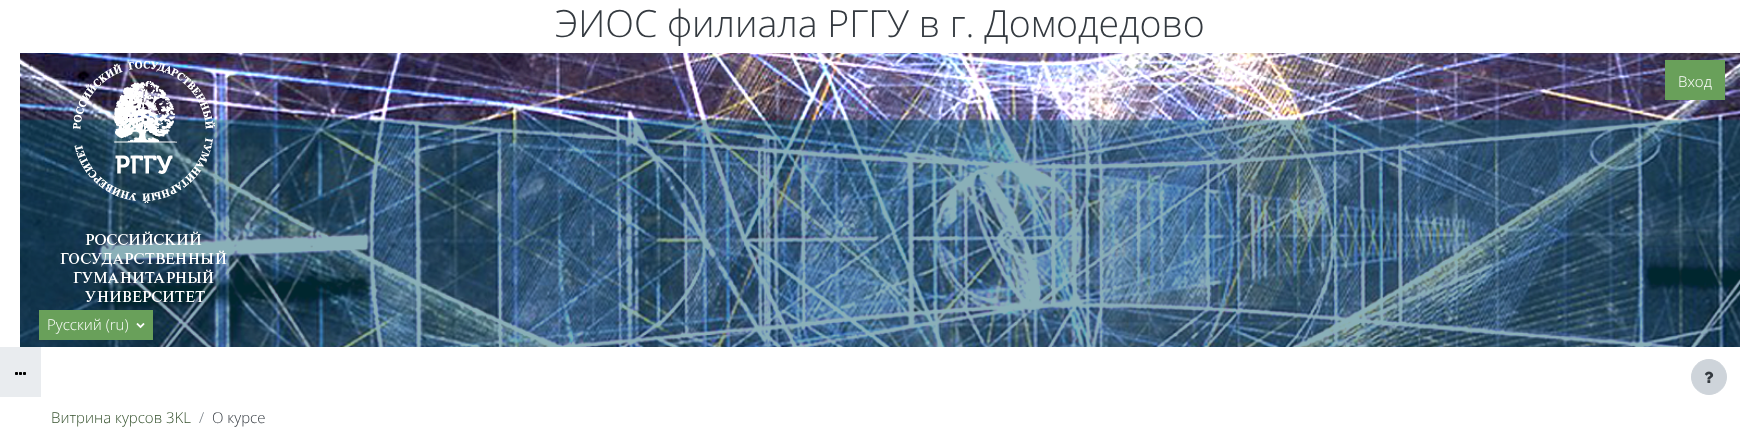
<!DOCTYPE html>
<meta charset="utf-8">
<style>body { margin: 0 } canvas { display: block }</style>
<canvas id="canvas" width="1759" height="427"></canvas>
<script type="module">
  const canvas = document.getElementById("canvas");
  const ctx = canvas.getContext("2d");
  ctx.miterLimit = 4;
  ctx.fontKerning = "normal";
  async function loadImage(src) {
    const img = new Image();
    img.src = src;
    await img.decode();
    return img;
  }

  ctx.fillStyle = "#ffffff";
  ctx.fillRect(0, 0, 1759, 427);
  ctx.font = "300 37.5px Open Sans";
  ctx.fillStyle = "#343a40";
  ctx.fillText("ЭИОС филиала РГГУ в г. Домодедово", 555, 37);
  ctx.drawImage(await loadImage("img1.png"), 20, 53, 1720, 294);
  ctx.fillStyle = "#69a05a";
  ctx.fillRect(1665, 60, 60, 40);
  ctx.font = "300 15px Open Sans";
  ctx.fillStyle = "#ffffff";
  ctx.fillText("Вход", 1678, 87);
  ctx.drawImage(await loadImage("img2.png"), 60, 61, 167, 241);
  ctx.fillStyle = "#69a05a";
  ctx.fillRect(39, 310, 114, 30);
  ctx.fillStyle = "#ffffff";
  ctx.fillText("Русский (ru)", 47, 330);
  ctx.drawImage(await loadImage("img3.png"), 136, 323, 9, 6);
  ctx.fillStyle = "#e9ecef";
  ctx.fillRect(0, 347, 41, 50);
  ctx.drawImage(await loadImage("img4.png"), 15, 372, 11, 3);
  ctx.fillStyle = "#ced4da";
  ctx.beginPath();
  ctx.arc(1709, 377, 17.5, 0, Math.PI * 2);
  ctx.fill();
  ctx.strokeStyle = "#ced4da";
  ctx.stroke();
  ctx.drawImage(await loadImage("img5.png"), 1704, 371, 10, 12);
  ctx.fillStyle = "#36522e";
  ctx.fillText("Витрина курсов 3KL", 51, 423);
  ctx.fillStyle = "#6c757d";
  ctx.fillText("/", 199, 423);
  ctx.fillStyle = "#343a40";
  ctx.fillText("О курсе", 212, 423);
</script>
